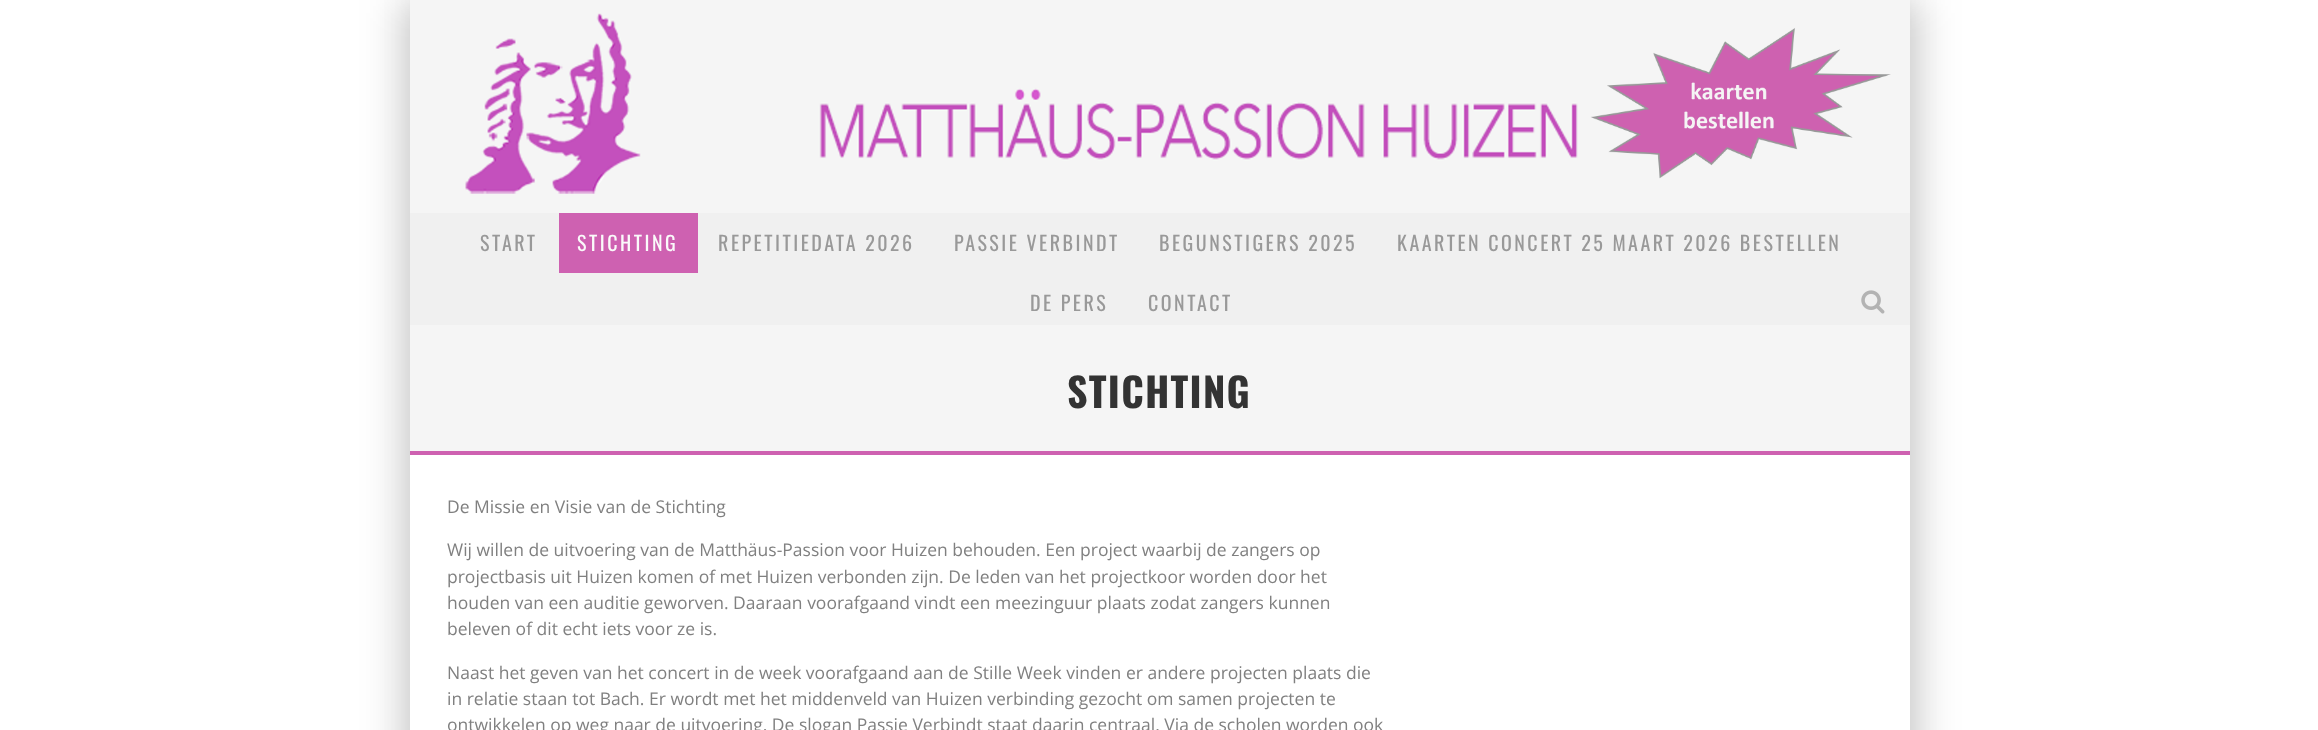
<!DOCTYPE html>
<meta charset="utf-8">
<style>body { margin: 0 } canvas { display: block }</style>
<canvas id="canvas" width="2318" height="730"></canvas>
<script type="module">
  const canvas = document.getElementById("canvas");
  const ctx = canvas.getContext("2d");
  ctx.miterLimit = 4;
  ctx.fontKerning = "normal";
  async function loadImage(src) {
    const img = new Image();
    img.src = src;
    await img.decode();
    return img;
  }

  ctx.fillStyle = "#ffffff";
  ctx.fillRect(0, 0, 2318, 730);
  ctx.save();
  ctx.beginPath();
  ctx.moveTo(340, 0);
  ctx.lineTo(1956, 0);
  ctx.lineTo(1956, 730);
  ctx.lineTo(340, 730);
  ctx.closePath();
  ctx.moveTo(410, 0);
  ctx.lineTo(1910, 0);
  ctx.lineTo(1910, 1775);
  ctx.lineTo(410, 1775);
  ctx.closePath();
  ctx.clip("evenodd");
  ctx.fillStyle = "rgba(0, 0, 0, 0.15)";
  ctx.filter = "blur(19px)";
  ctx.beginPath();
  ctx.rect(398, 0, 1500, 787);
  ctx.fill();
  ctx.filter = "none";
  ctx.restore();
  ctx.save();
  ctx.beginPath();
  ctx.moveTo(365, 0);
  ctx.lineTo(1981, 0);
  ctx.lineTo(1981, 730);
  ctx.lineTo(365, 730);
  ctx.closePath();
  ctx.moveTo(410, 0);
  ctx.lineTo(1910, 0);
  ctx.lineTo(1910, 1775);
  ctx.lineTo(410, 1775);
  ctx.closePath();
  ctx.clip("evenodd");
  ctx.fillStyle = "rgba(0, 0, 0, 0.15)";
  ctx.filter = "blur(19px)";
  ctx.beginPath();
  ctx.rect(423, 0, 1500, 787);
  ctx.fill();
  ctx.filter = "none";
  ctx.restore();
  ctx.fillStyle = "#f5f5f5";
  ctx.fillRect(410, 0, 1500, 451);
  ctx.drawImage(await loadImage("img1.png"), 465, 13, 1426, 181);
  ctx.fillStyle = "#f0f0f0";
  ctx.fillRect(410, 213, 1500, 112);
  ctx.letterSpacing = "2.5px";
  ctx.font = "20px Oswald";
  ctx.fillStyle = "#999999";
  ctx.fillText("START", 480, 251);
  ctx.fillStyle = "#ce61b1";
  ctx.fillRect(559, 213, 139, 60);
  ctx.fillStyle = "#fafafa";
  ctx.fillText("STICHTING", 577, 251);
  ctx.fillStyle = "#999999";
  ctx.fillText("REPETITIEDATA 2026", 718, 251);
  ctx.fillText("PASSIE VERBINDT", 954, 251);
  ctx.fillText("BEGUNSTIGERS 2025", 1159, 251);
  ctx.fillText("KAARTEN CONCERT 25 MAART 2026 BESTELLEN", 1397, 251);
  ctx.fillText("DE PERS", 1030, 311);
  ctx.fillText("CONTACT", 1148, 311);
  ctx.drawImage(await loadImage("img2.png"), 1861, 290, 24, 24);
  ctx.fillStyle = "#ce61b1";
  ctx.fillRect(410, 451, 1500, 4);
  ctx.letterSpacing = "1.25px";
  ctx.font = "bold 40px Oswald";
  ctx.fillStyle = "#333333";
  ctx.fillText("STICHTING", 1067, 408);
  ctx.letterSpacing = "0px";
  ctx.font = "17.5px Open Sans";
  ctx.fillStyle = "#808080";
  ctx.fillText("De Missie en Visie van de Stichting", 447, 513);
  ctx.fillText("Wij willen de uitvoering van de Matthäus-Passion voor Huizen behouden. Een project waarbij de zangers op", 447, 556);
  ctx.fillText("projectbasis uit Huizen komen of met Huizen verbonden zijn. De leden van het projectkoor worden door het", 447, 583);
  ctx.fillText("houden van een auditie geworven. Daaraan voorafgaand vindt een meezinguur plaats zodat zangers kunnen", 447, 609);
  ctx.fillText("beleven of dit echt iets voor ze is.", 447, 635);
  ctx.fillText("Naast het geven van het concert in de week voorafgaand aan de Stille Week vinden er andere projecten plaats die", 447, 679);
  ctx.fillText("in relatie staan tot Bach. Er wordt met het middenveld van Huizen verbinding gezocht om samen projecten te", 447, 705);
  ctx.fillText("ontwikkelen op weg naar de uitvoering. De slogan Passie Verbindt staat daarin centraal. Via de scholen worden ook", 447, 731);
</script>
